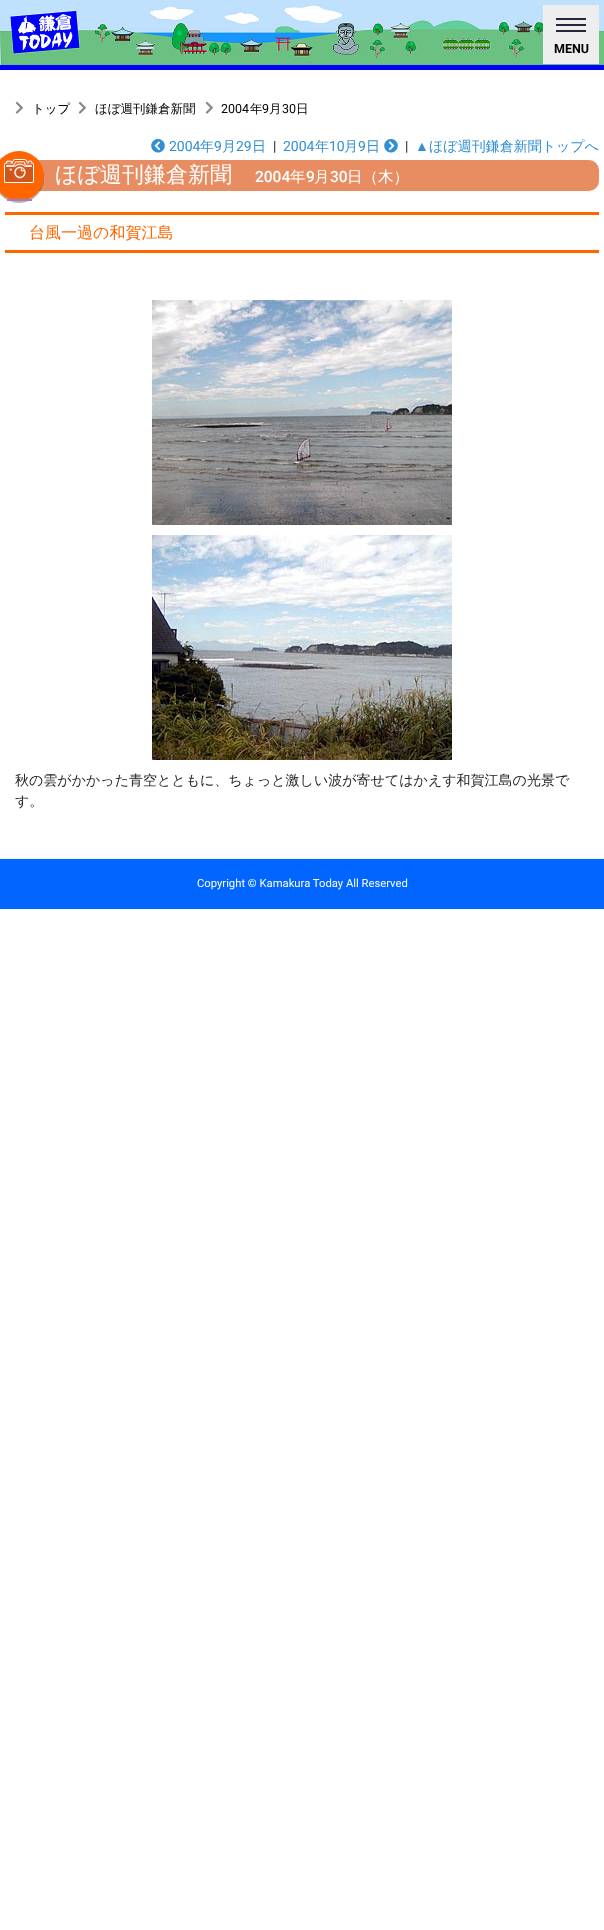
<!DOCTYPE html>
<meta charset="utf-8">
<style>body { margin: 0 } canvas { display: block }</style>
<canvas id="canvas" width="604" height="1930"></canvas>
<script type="module">
  const canvas = document.getElementById("canvas");
  const ctx = canvas.getContext("2d");
  ctx.miterLimit = 4;
  ctx.fontKerning = "normal";
  async function loadImage(src) {
    const img = new Image();
    img.src = src;
    await img.decode();
    return img;
  }

  ctx.fillStyle = "#ffffff";
  ctx.fillRect(0, 0, 604, 1930);
  ctx.drawImage(await loadImage("img1.png"), 0, 0, 604, 65);
  ctx.fillStyle = "#0000ff";
  ctx.fillRect(0, 65, 604, 5);
  ctx.fillStyle = "#eeeeee";
  ctx.fillRect(544, 5, 55, 59);
  ctx.fillStyle = "#f2f2f2";
  ctx.fillRect(543, 5, 1, 59);
  ctx.fillStyle = "#25283d";
  ctx.fillRect(556, 24, 30, 2);
  ctx.fillRect(556, 18, 30, 2);
  ctx.fillRect(556, 30, 30, 2);
  ctx.font = "bold 12.5px Roboto";
  ctx.fillStyle = "#000000";
  ctx.fillText("MENU", 554, 53);
  ctx.drawImage(await loadImage("img2.png"), 15, 101, 8, 13);
  ctx.font = "500 12.5px WenQuanYi Zen Hei";
  ctx.fillText("トップ", 32, 113);
  ctx.drawImage(await loadImage("img2.png"), 78, 101, 8, 13);
  ctx.fillText("ほぼ週刊鎌倉新聞", 95, 113);
  ctx.drawImage(await loadImage("img2.png"), 205, 101, 8, 13);
  ctx.font = "12.5px Roboto";
  ctx.fillText("2004", 221, 113);
  ctx.font = "500 12.5px WenQuanYi Zen Hei";
  ctx.fillText("年", 250, 113);
  ctx.font = "12.5px Roboto";
  ctx.fillText("9", 262, 113);
  ctx.font = "500 12.5px WenQuanYi Zen Hei";
  ctx.fillText("月", 269, 113);
  ctx.font = "12.5px Roboto";
  ctx.fillText("30", 282, 113);
  ctx.font = "500 12.5px WenQuanYi Zen Hei";
  ctx.fillText("日", 296, 113);
  ctx.drawImage(await loadImage("img3.png"), 151, 139, 14, 14);
  ctx.font = "14px Roboto";
  ctx.fillStyle = "#338fd4";
  ctx.fillText("2004", 169, 151);
  ctx.font = "500 14px WenQuanYi Zen Hei";
  ctx.fillText("年", 200, 151);
  ctx.font = "14px Roboto";
  ctx.fillText("9", 214, 151);
  ctx.font = "500 14px WenQuanYi Zen Hei";
  ctx.fillText("月", 222, 151);
  ctx.font = "14px Roboto";
  ctx.fillText("29", 236, 151);
  ctx.font = "500 14px WenQuanYi Zen Hei";
  ctx.fillText("日", 252, 151);
  ctx.font = "14px Roboto";
  ctx.fillStyle = "#212529";
  ctx.fillText("|", 273, 151);
  ctx.fillStyle = "#338fd4";
  ctx.fillText("2004", 283, 151);
  ctx.font = "500 14px WenQuanYi Zen Hei";
  ctx.fillText("年", 315, 151);
  ctx.font = "14px Roboto";
  ctx.fillText("10", 329, 151);
  ctx.font = "500 14px WenQuanYi Zen Hei";
  ctx.fillText("月", 344, 151);
  ctx.font = "14px Roboto";
  ctx.fillText("9", 358, 151);
  ctx.font = "500 14px WenQuanYi Zen Hei";
  ctx.fillText("日", 366, 151);
  ctx.drawImage(await loadImage("img4.png"), 384, 139, 14, 14);
  ctx.font = "14px Roboto";
  ctx.fillStyle = "#212529";
  ctx.fillText("|", 405, 151);
  ctx.font = "14px Liberation Sans";
  ctx.fillStyle = "#338fd4";
  ctx.fillText("▲", 415, 151);
  ctx.font = "500 14px WenQuanYi Zen Hei";
  ctx.fillText("ほぼ週刊鎌倉新聞トップへ", 429, 151);
  ctx.fillStyle = "#e88d61";
  ctx.beginPath();
  ctx.roundRect(5, 160, 594, 31, [0, 10, 10, 0]);
  ctx.fill();
  ctx.fillStyle = "rgba(0, 0, 0, 0.29)";
  ctx.filter = "blur(0.5px)";
  ctx.beginPath();
  ctx.roundRect(-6, 153, 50, 50, 25);
  ctx.fill();
  ctx.filter = "none";
  ctx.fillStyle = "#ff6600";
  ctx.beginPath();
  ctx.arc(19, 176, 25, 0, Math.PI * 2);
  ctx.fill();
  ctx.fillStyle = "#a47bc8";
  ctx.fillRect(7, 199, 25, 2);
  ctx.drawImage(await loadImage("img5.png"), 4, 159, 30, 24);
  ctx.font = "500 22px WenQuanYi Zen Hei";
  ctx.fillStyle = "#ffffff";
  ctx.fillText("ほぼ週刊鎌倉新聞", 55, 182);
  ctx.font = "500 15.5px Roboto";
  ctx.fillText("2004", 255, 182);
  ctx.font = "500 15.5px WenQuanYi Zen Hei";
  ctx.fillText("年", 290, 182);
  ctx.font = "500 15.5px Roboto";
  ctx.fillText("9", 306, 182);
  ctx.font = "500 15.5px WenQuanYi Zen Hei";
  ctx.fillText("月", 314, 182);
  ctx.font = "500 15.5px Roboto";
  ctx.fillText("30", 330, 182);
  ctx.font = "500 15.5px WenQuanYi Zen Hei";
  ctx.fillText("日（木）", 347, 182);
  ctx.fillStyle = "#ff6600";
  ctx.fillRect(5, 212, 594, 3);
  ctx.fillRect(5, 250, 594, 3);
  ctx.font = "500 16px WenQuanYi Zen Hei";
  ctx.fillText("台風一過の和賀江島", 29, 238);
  ctx.drawImage(await loadImage("img6.png"), 152, 300, 300, 225);
  ctx.drawImage(await loadImage("img7.png"), 152, 535, 300, 225);
  ctx.font = "500 14px WenQuanYi Zen Hei";
  ctx.fillStyle = "#212529";
  ctx.fillText("秋の雲がかかった青空とともに、ちょっと激しい波が寄せてはかえす和賀江島の光景で", 15, 785);
  ctx.fillText("す。", 15, 806);
  ctx.fillStyle = "#0066ff";
  ctx.fillRect(0, 859, 604, 50);
  ctx.font = "11.25px Roboto";
  ctx.fillStyle = "#ffffff";
  ctx.fillText("Copyright © Kamakura Today All Reserved", 197, 887);
</script>
